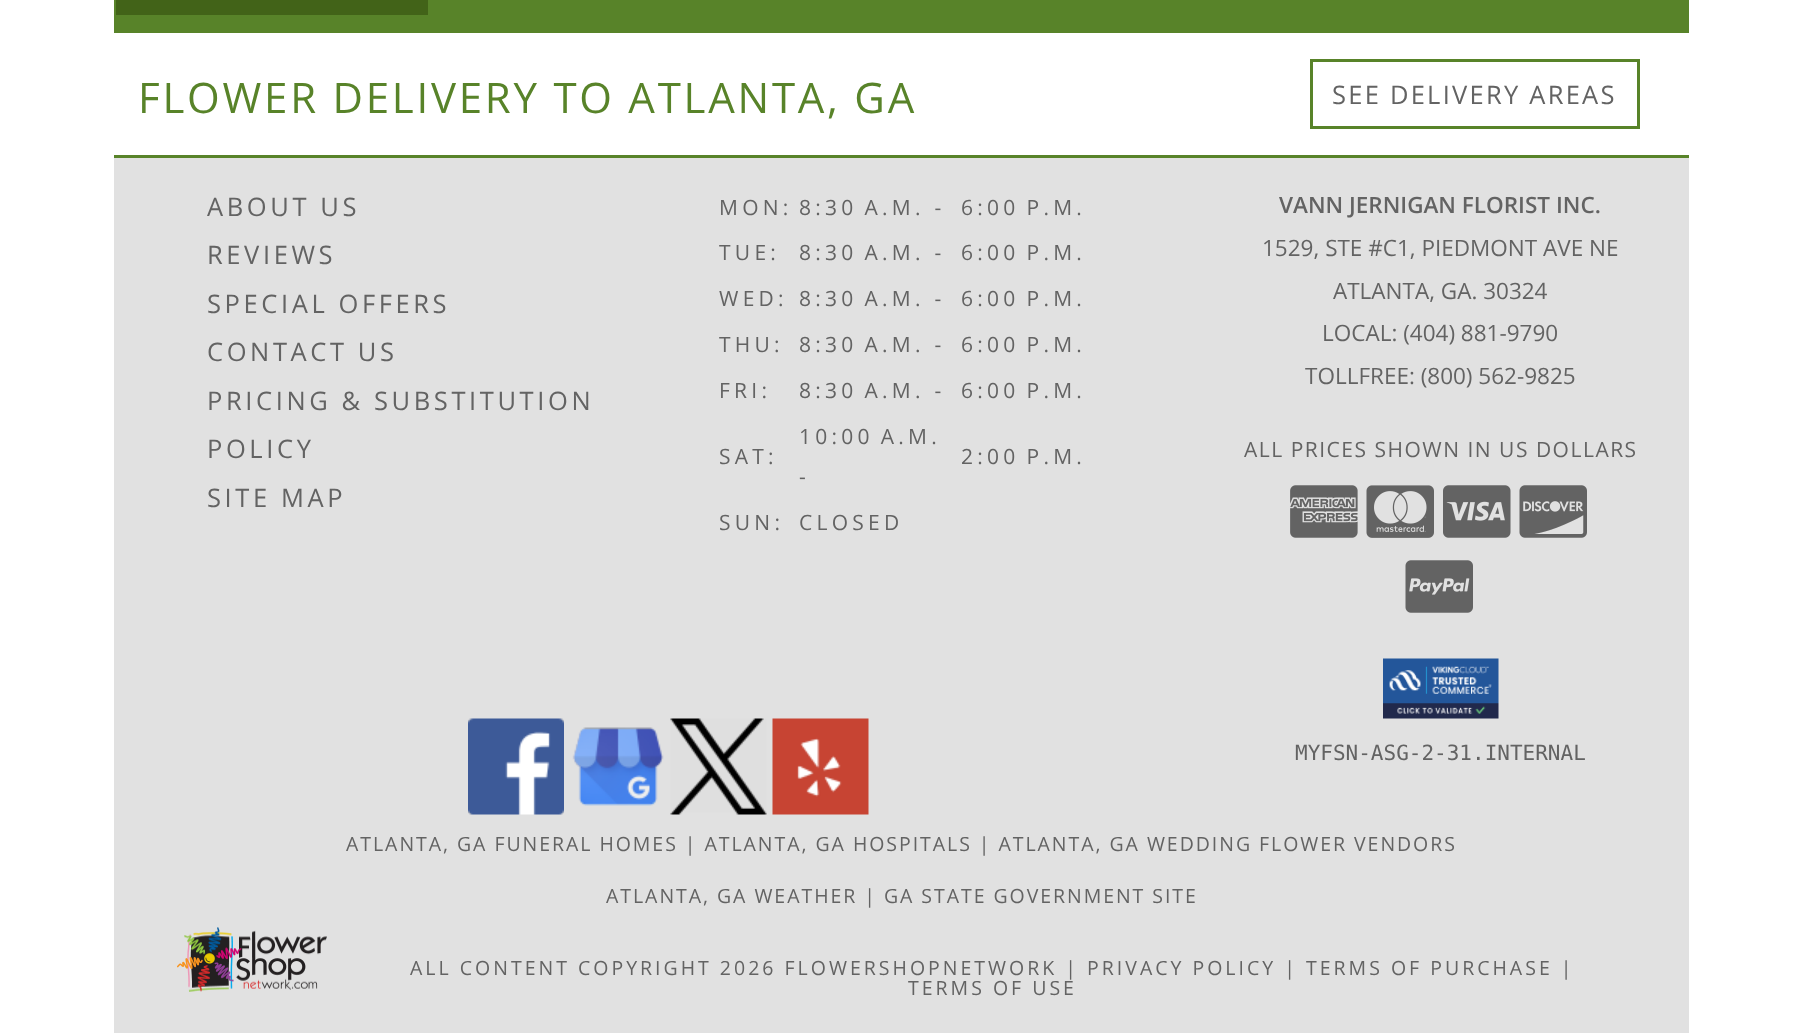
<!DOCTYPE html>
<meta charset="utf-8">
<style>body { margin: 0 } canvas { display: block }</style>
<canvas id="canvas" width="1803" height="1033"></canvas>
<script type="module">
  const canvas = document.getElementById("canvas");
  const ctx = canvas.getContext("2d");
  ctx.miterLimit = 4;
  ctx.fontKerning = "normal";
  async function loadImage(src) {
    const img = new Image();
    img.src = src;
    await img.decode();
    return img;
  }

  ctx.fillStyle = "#ffffff";
  ctx.fillRect(0, 0, 1803, 1033);
  ctx.fillStyle = "#588329";
  ctx.fillRect(114, 0, 1575, 33);
  ctx.fillStyle = "#426318";
  ctx.fillRect(116, 0, 312, 15);
  ctx.fillStyle = "#588329";
  ctx.fillRect(114, 155, 1575, 3);
  ctx.letterSpacing = "2.75px";
  ctx.font = "42px Open Sans";
  ctx.fillText("FLOWER DELIVERY TO ATLANTA, GA", 138, 113);
  ctx.strokeStyle = "#588329";
  ctx.lineWidth = 3;
  ctx.strokeRect(1311.5, 60.5, 327, 67);
  ctx.letterSpacing = "2.25px";
  ctx.font = "25.5px Open Sans";
  ctx.fillStyle = "#636363";
  ctx.fillText("SEE DELIVERY AREAS", 1332, 104);
  ctx.fillStyle = "#e1e1e1";
  ctx.fillRect(114, 158, 1575, 875);
  ctx.letterSpacing = "3.6px";
  ctx.fillStyle = "#636363";
  ctx.fillText("ABOUT US", 207, 216);
  ctx.fillText("REVIEWS", 207, 264);
  ctx.fillText("SPECIAL OFFERS", 207, 313);
  ctx.fillText("CONTACT US", 207, 361);
  ctx.fillText("PRICING & SUBSTITUTION", 207, 410);
  ctx.fillText("POLICY", 207, 458);
  ctx.fillText("SITE MAP", 207, 507);
  ctx.letterSpacing = "4.25px";
  ctx.font = "21px Open Sans";
  ctx.fillText("MON:", 719, 215);
  ctx.fillText("8:30 A.M. -", 799, 215);
  ctx.fillText("6:00 P.M.", 961, 215);
  ctx.fillText("TUE:", 719, 260);
  ctx.fillText("8:30 A.M. -", 799, 260);
  ctx.fillText("6:00 P.M.", 961, 260);
  ctx.fillText("WED:", 719, 306);
  ctx.fillText("8:30 A.M. -", 799, 306);
  ctx.fillText("6:00 P.M.", 961, 306);
  ctx.fillText("THU:", 719, 352);
  ctx.fillText("8:30 A.M. -", 799, 352);
  ctx.fillText("6:00 P.M.", 961, 352);
  ctx.fillText("FRI:", 719, 398);
  ctx.fillText("8:30 A.M. -", 799, 398);
  ctx.fillText("6:00 P.M.", 961, 398);
  ctx.fillText("SAT:", 719, 464);
  ctx.fillText("10:00 A.M.", 799, 444);
  ctx.fillText("-", 799, 484);
  ctx.fillText("2:00 P.M.", 961, 464);
  ctx.fillText("SUN:", 719, 530);
  ctx.fillText("CLOSED", 799, 530);
  ctx.letterSpacing = "0px";
  ctx.font = "600 22.5px Open Sans";
  ctx.fillText("VANN JERNIGAN FLORIST INC.", 1279, 213);
  ctx.font = "22.5px Open Sans";
  ctx.fillText("1529, STE #C1, PIEDMONT AVE NE", 1262, 256);
  ctx.fillText("ATLANTA, GA. 30324", 1333, 299);
  ctx.fillText("LOCAL: (404) 881-9790", 1322, 341);
  ctx.fillText("TOLLFREE: (800) 562-9825", 1305, 384);
  ctx.letterSpacing = "1.5px";
  ctx.font = "21px Open Sans";
  ctx.fillText("ALL PRICES SHOWN IN US DOLLARS", 1244, 457);
  ctx.drawImage(await loadImage("img1.png"), 1290, 485, 68, 53);
  ctx.drawImage(await loadImage("img2.png"), 1366, 485, 68, 53);
  ctx.drawImage(await loadImage("img3.png"), 1443, 485, 68, 53);
  ctx.drawImage(await loadImage("img4.png"), 1519, 485, 68, 53);
  ctx.drawImage(await loadImage("img5.png"), 1405, 560, 68, 53);
  ctx.drawImage(await loadImage("img6.png"), 1383, 658, 116, 61);
  ctx.letterSpacing = "0px";
  ctx.font = "21px DejaVu Sans Mono";
  ctx.fillText("MYFSN-ASG-2-31.INTERNAL", 1295, 760);
  ctx.drawImage(await loadImage("img7.png"), 468, 718, 96, 97);
  ctx.drawImage(await loadImage("img8.png"), 572, 727, 92, 79);
  ctx.drawImage(await loadImage("img9.png"), 670, 718, 97, 97);
  ctx.drawImage(await loadImage("img10.png"), 772, 718, 97, 97);
  ctx.letterSpacing = "1.95px";
  ctx.font = "19.5px Open Sans";
  ctx.fillText("ATLANTA, GA FUNERAL HOMES | ATLANTA, GA HOSPITALS | ATLANTA, GA WEDDING FLOWER VENDORS", 346, 851);
  ctx.fillText("ATLANTA, GA WEATHER | GA STATE GOVERNMENT SITE", 606, 903);
  ctx.drawImage(await loadImage("img11.png"), 177, 927, 150, 65);
  ctx.letterSpacing = "3px";
  ctx.fillText("ALL CONTENT COPYRIGHT 2026 FLOWERSHOPNETWORK | PRIVACY POLICY | TERMS OF PURCHASE |", 410, 975);
  ctx.fillText("TERMS OF USE", 908, 995);
</script>
